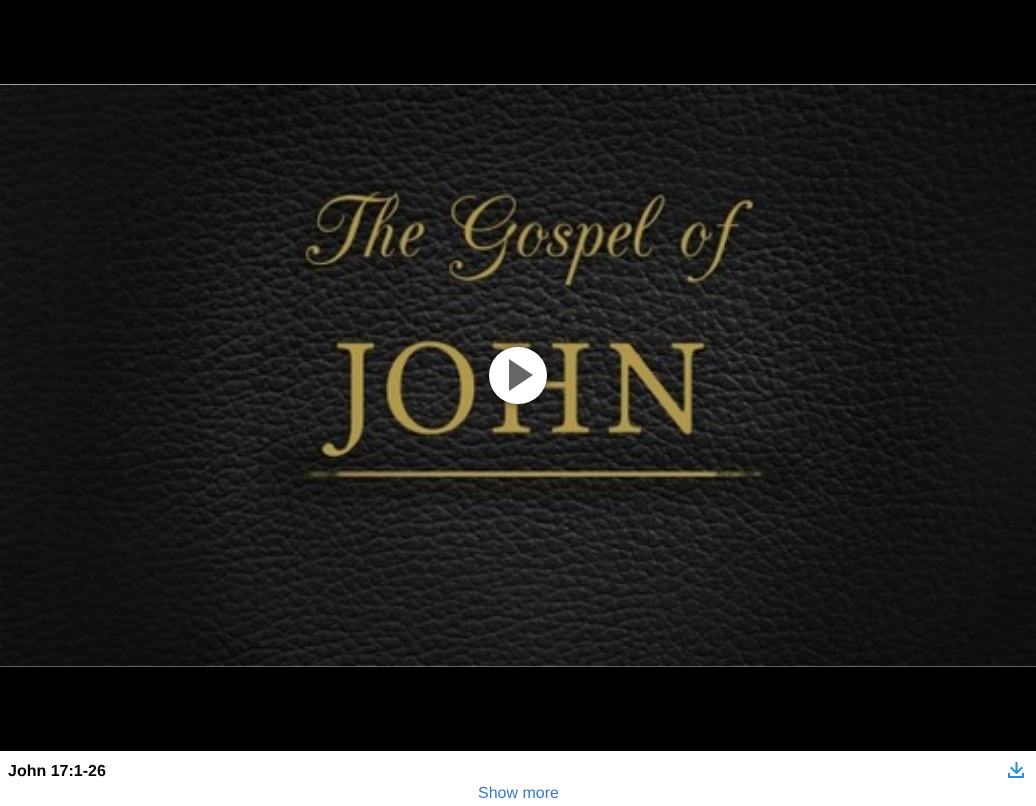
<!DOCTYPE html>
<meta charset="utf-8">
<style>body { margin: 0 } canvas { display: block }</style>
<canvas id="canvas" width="1036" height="806"></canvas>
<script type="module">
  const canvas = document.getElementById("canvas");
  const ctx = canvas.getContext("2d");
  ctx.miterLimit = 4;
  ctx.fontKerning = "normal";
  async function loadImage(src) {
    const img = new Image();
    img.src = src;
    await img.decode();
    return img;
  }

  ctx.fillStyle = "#ffffff";
  ctx.fillRect(0, 0, 1036, 806);
  ctx.fillStyle = "#000000";
  ctx.fillRect(0, 0, 1036, 751);
  ctx.fillStyle = "#eeeeee";
  ctx.fillRect(0, 84, 1036, 583);
  ctx.drawImage(await loadImage("img1.png"), 0, 84, 1036, 583);
  ctx.fillStyle = "rgba(0, 0, 0, 0.5)";
  ctx.filter = "blur(4px)";
  ctx.beginPath();
  ctx.roundRect(489, 347, 58, 57, 28.5);
  ctx.fill();
  ctx.filter = "none";
  ctx.fillStyle = "#ffffff";
  ctx.beginPath();
  ctx.roundRect(489, 347, 58, 57, 28.5);
  ctx.fill();
  ctx.fillStyle = "#666666";
  ctx.beginPath();
  ctx.moveTo(533, 375);
  ctx.lineTo(509, 391);
  ctx.lineTo(509, 359);
  ctx.closePath();
  ctx.fill();
  ctx.font = "bold 16px Liberation Sans";
  ctx.fillStyle = "#000000";
  ctx.fillText("John 17:1-26", 8, 776);
  ctx.drawImage(await loadImage("img2.png"), 1008, 762, 16, 16);
  ctx.font = "16px Liberation Sans";
  ctx.fillStyle = "#3a7ac9";
  ctx.fillText("Show more", 478, 798);
</script>
